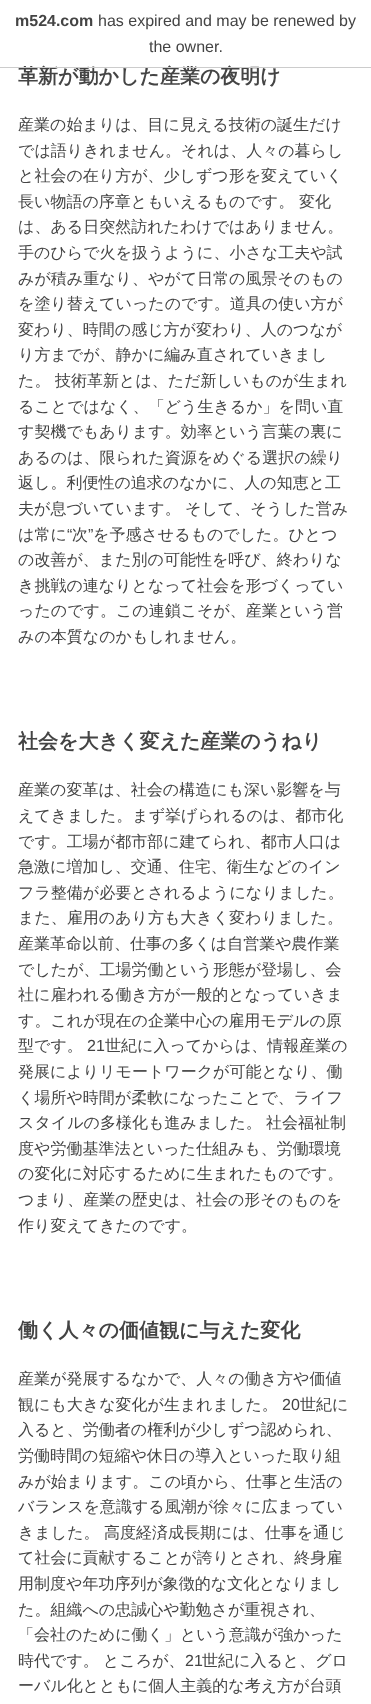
<!DOCTYPE html>
<meta charset="utf-8">
<style>body { margin: 0 } canvas { display: block }</style>
<canvas id="canvas" width="371" height="1704"></canvas>
<script type="module">
  const canvas = document.getElementById("canvas");
  const ctx = canvas.getContext("2d");
  ctx.miterLimit = 4;
  ctx.fontKerning = "normal";

  ctx.fillStyle = "#ffffff";
  ctx.fillRect(0, 0, 371, 1704);
  ctx.font = "bold 20px WenQuanYi Zen Hei";
  ctx.fillStyle = "#444444";
  ctx.fillText("革新が動かした産業の夜明け", 18, 83);
  ctx.fillStyle = "#cccccc";
  ctx.fillRect(0, 67, 371, 1);
  ctx.font = "bold 16px Liberation Sans";
  ctx.fillStyle = "#444444";
  ctx.fillText("m524.com", 15, 26);
  ctx.font = "16px Liberation Sans";
  ctx.fillText("has expired and may be renewed by", 98, 26);
  ctx.fillText("the owner.", 149, 52);
  ctx.font = "500 16px WenQuanYi Zen Hei";
  ctx.fillText("産業の始まりは、目に見える技術の誕生だけ", 18, 130);
  ctx.fillText("では語りきれません。それは、人々の暮らし", 18, 156);
  ctx.fillText("と社会の在り方が、少しずつ形を変えていく", 18, 181);
  ctx.fillText("長い物語の序章ともいえるものです。", 18, 207);
  ctx.fillText("変化", 299, 207);
  ctx.fillText("は、ある日突然訪れたわけではありません。", 18, 232);
  ctx.fillText("手のひらで火を扱うように、小さな工夫や試", 18, 258);
  ctx.fillText("みが積み重なり、やがて日常の風景そのもの", 18, 284);
  ctx.fillText("を塗り替えていったのです。道具の使い方が", 18, 309);
  ctx.fillText("変わり、時間の感じ方が変わり、人のつなが", 18, 335);
  ctx.fillText("り方までが、静かに編み直されていきまし", 18, 360);
  ctx.fillText("た。", 18, 386);
  ctx.fillText("技術革新とは、ただ新しいものが生まれ", 55, 386);
  ctx.fillText("ることではなく、「どう生きるか」を問い直", 18, 412);
  ctx.fillText("す契機でもあります。効率という言葉の裏に", 18, 437);
  ctx.fillText("あるのは、限られた資源をめぐる選択の繰り", 18, 463);
  ctx.fillText("返し。利便性の追求のなかに、人の知恵と工", 18, 488);
  ctx.fillText("夫が息づいています。", 18, 514);
  ctx.fillText("そして、そうした営み", 185, 514);
  ctx.fillText("は常に", 18, 540);
  ctx.font = "16px Liberation Sans";
  ctx.fillText("“", 67, 540);
  ctx.font = "500 16px WenQuanYi Zen Hei";
  ctx.fillText("次", 72, 540);
  ctx.font = "16px Liberation Sans";
  ctx.fillText("”", 88, 540);
  ctx.font = "500 16px WenQuanYi Zen Hei";
  ctx.fillText("を予感させるものでした。ひとつ", 93, 540);
  ctx.fillText("の改善が、また別の可能性を呼び、終わりな", 18, 565);
  ctx.fillText("き挑戦の連なりとなって社会を形づくってい", 18, 591);
  ctx.fillText("ったのです。この連鎖こそが、産業という営", 18, 616);
  ctx.fillText("みの本質なのかもしれません。", 18, 642);
  ctx.font = "bold 20px WenQuanYi Zen Hei";
  ctx.fillText("社会を大きく変えた産業のうねり", 18, 748);
  ctx.font = "500 16px WenQuanYi Zen Hei";
  ctx.fillText("産業の変革は、社会の構造にも深い影響を与", 18, 795);
  ctx.fillText("えてきました。まず挙げられるのは、都市化", 18, 821);
  ctx.fillText("です。工場が都市部に建てられ、都市人口は", 18, 847);
  ctx.fillText("急激に増加し、交通、住宅、衛生などのイン", 18, 872);
  ctx.fillText("フラ整備が必要とされるようになりました。", 18, 898);
  ctx.fillText("また、雇用のあり方も大きく変わりました。", 18, 923);
  ctx.fillText("産業革命以前、仕事の多くは自営業や農作業", 18, 949);
  ctx.fillText("でしたが、工場労働という形態が登場し、会", 18, 975);
  ctx.fillText("社に雇われる働き方が一般的となっていきま", 18, 1000);
  ctx.fillText("す。これが現在の企業中心の雇用モデルの原", 18, 1026);
  ctx.fillText("型です。", 18, 1051);
  ctx.font = "16px Liberation Sans";
  ctx.fillText("21", 87, 1051);
  ctx.font = "500 16px WenQuanYi Zen Hei";
  ctx.fillText("世紀に入ってからは、情報産業の", 105, 1051);
  ctx.fillText("発展によりリモートワークが可能となり、働", 18, 1077);
  ctx.fillText("く場所や時間が柔軟になったことで、ライフ", 18, 1103);
  ctx.fillText("スタイルの多様化も進みました。", 18, 1128);
  ctx.fillText("社会福祉制", 266, 1128);
  ctx.fillText("度や労働基準法といった仕組みも、労働環境", 18, 1154);
  ctx.fillText("の変化に対応するために生まれたものです。", 18, 1179);
  ctx.fillText("つまり、産業の歴史は、社会の形そのものを", 18, 1205);
  ctx.fillText("作り変えてきたのです。", 18, 1231);
  ctx.font = "bold 20px WenQuanYi Zen Hei";
  ctx.fillText("働く人々の価値観に与えた変化", 18, 1337);
  ctx.font = "500 16px WenQuanYi Zen Hei";
  ctx.fillText("産業が発展するなかで、人々の働き方や価値", 18, 1384);
  ctx.fillText("観にも大きな変化が生まれました。", 18, 1410);
  ctx.font = "16px Liberation Sans";
  ctx.fillText("20", 282, 1410);
  ctx.font = "500 16px WenQuanYi Zen Hei";
  ctx.fillText("世紀に", 300, 1410);
  ctx.fillText("入ると、労働者の権利が少しずつ認められ、", 18, 1435);
  ctx.fillText("労働時間の短縮や休日の導入といった取り組", 18, 1461);
  ctx.fillText("みが始まります。この頃から、仕事と生活の", 18, 1487);
  ctx.fillText("バランスを意識する風潮が徐々に広まってい", 18, 1512);
  ctx.fillText("きました。", 18, 1538);
  ctx.fillText("高度経済成長期には、仕事を通じ", 104, 1538);
  ctx.fillText("て社会に貢献することが誇りとされ、終身雇", 18, 1563);
  ctx.fillText("用制度や年功序列が象徴的な文化となりまし", 18, 1589);
  ctx.fillText("た。組織への忠誠心や勤勉さが重視され、", 18, 1615);
  ctx.fillText("「会社のために働く」という意識が強かった", 18, 1640);
  ctx.fillText("時代です。", 18, 1666);
  ctx.fillText("ところが、", 103, 1666);
  ctx.font = "16px Liberation Sans";
  ctx.fillText("21", 185, 1666);
  ctx.font = "500 16px WenQuanYi Zen Hei";
  ctx.fillText("世紀に入ると、グロ", 202, 1666);
  ctx.fillText("ーバル化とともに個人主義的な考え方が台頭", 18, 1691);
</script>
